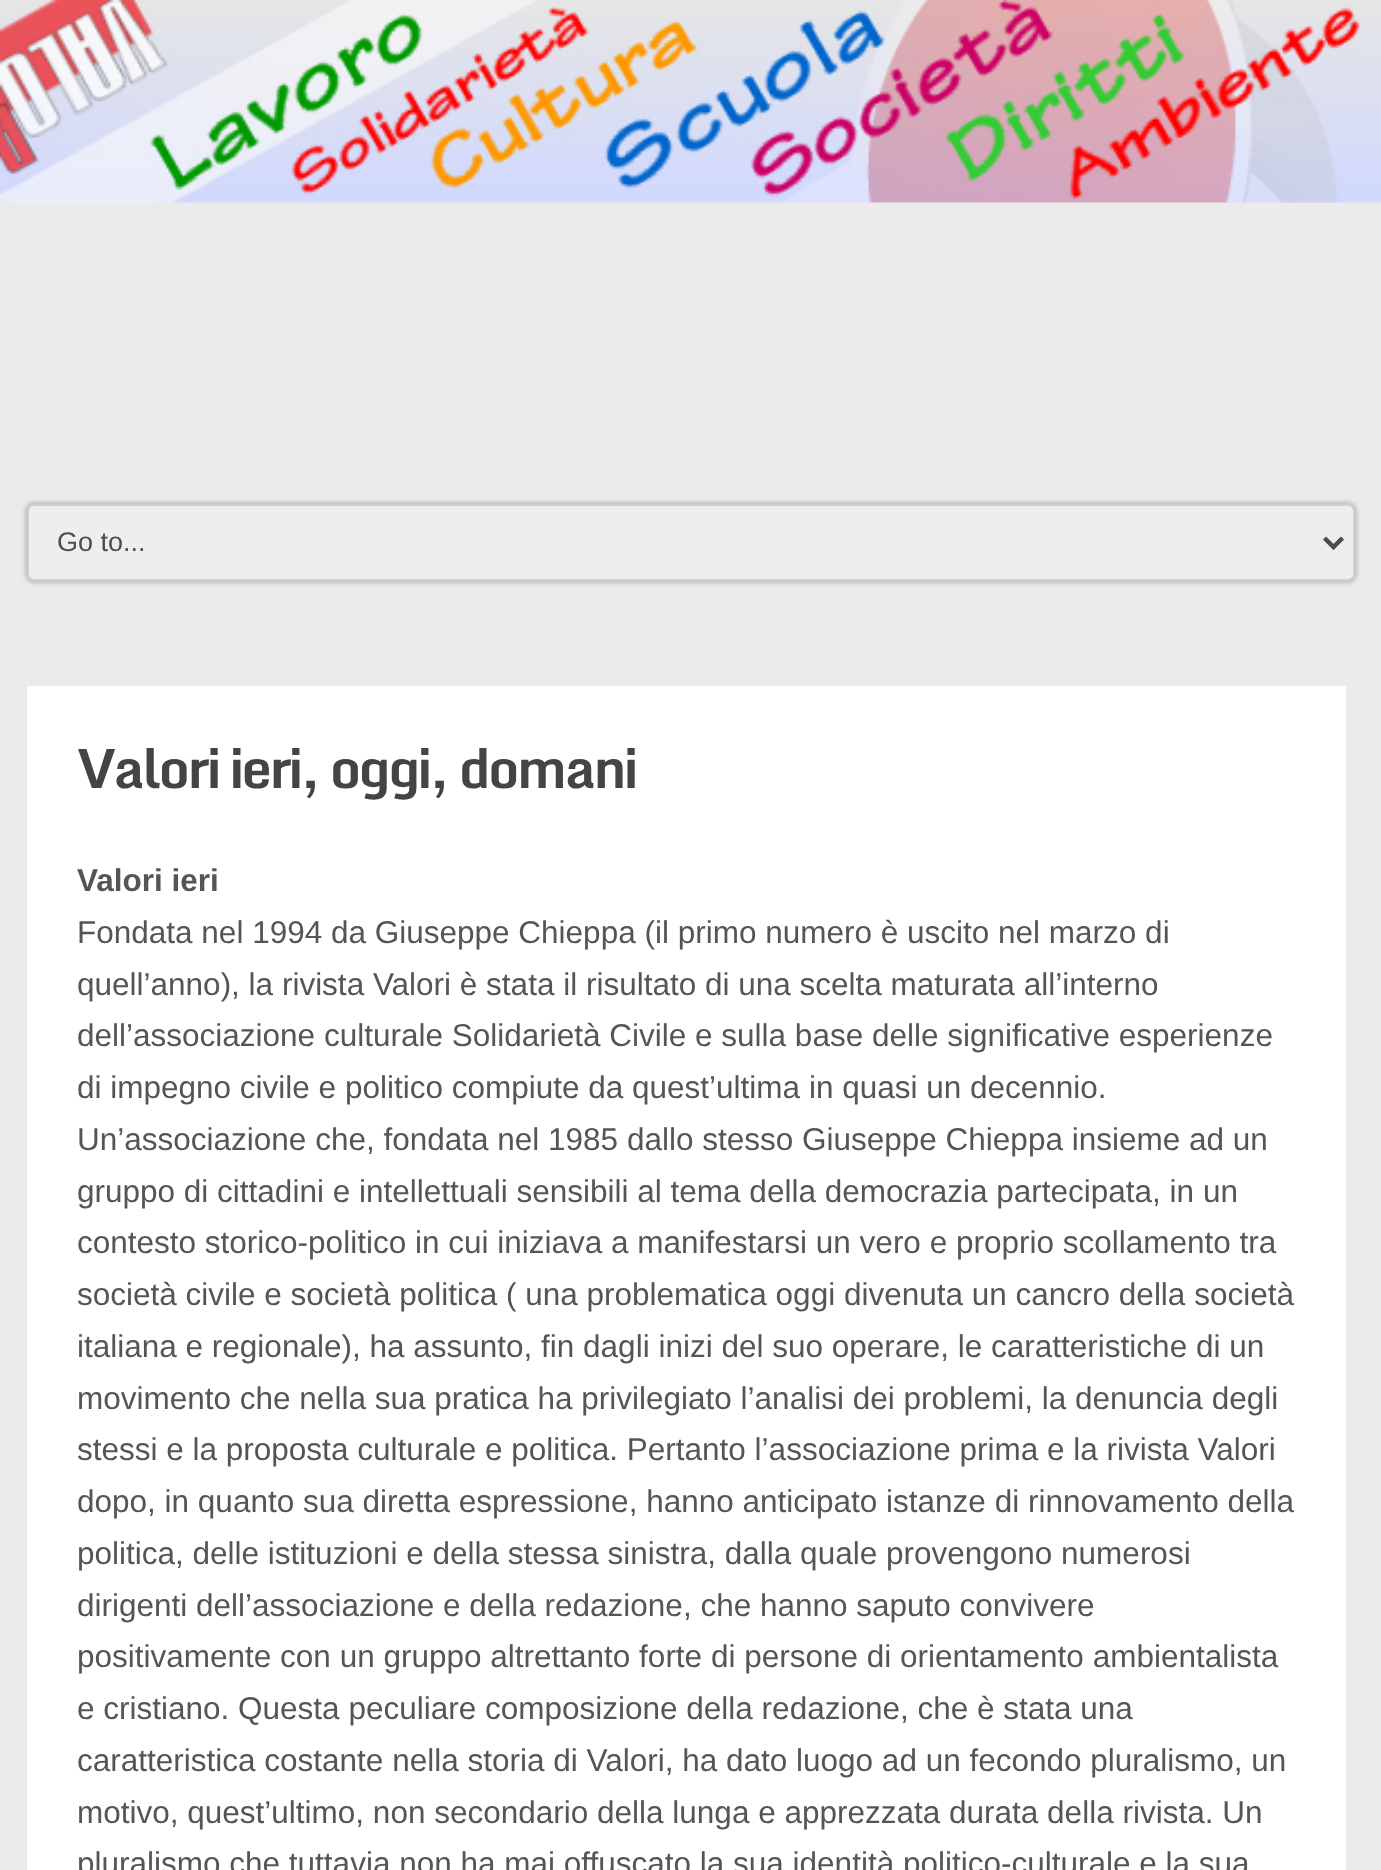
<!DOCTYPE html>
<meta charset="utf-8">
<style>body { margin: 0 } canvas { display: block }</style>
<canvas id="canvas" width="1381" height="1870"></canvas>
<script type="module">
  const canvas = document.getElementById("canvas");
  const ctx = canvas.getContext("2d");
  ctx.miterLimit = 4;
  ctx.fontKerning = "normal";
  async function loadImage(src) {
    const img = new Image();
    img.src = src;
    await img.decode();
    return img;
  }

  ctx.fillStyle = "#ebebeb";
  ctx.fillRect(0, 0, 1381, 1870);
  ctx.drawImage(await loadImage("img1.png"), 0, 0, 1381, 203);
  ctx.fillStyle = "rgba(0, 0, 0, 0.2)";
  ctx.filter = "blur(2px)";
  ctx.beginPath();
  ctx.roundRect(25, 502, 1332, 81, 9);
  ctx.fill();
  ctx.filter = "none";
  ctx.fillStyle = "#eeeeee";
  ctx.beginPath();
  ctx.roundRect(28, 505, 1326, 75, 6);
  ctx.fill();
  ctx.strokeStyle = "#cfcfcf";
  ctx.lineWidth = 2;
  ctx.stroke();
  ctx.beginPath();
  ctx.moveTo(1324.5, 538);
  ctx.lineTo(1333.5, 547);
  ctx.lineTo(1342.5, 538);
  ctx.strokeStyle = "#4d4d4d";
  ctx.lineWidth = 4.5;
  ctx.stroke();
  ctx.font = "27px Liberation Sans";
  ctx.fillStyle = "#4d4d4d";
  ctx.fillText("Go to...", 57, 551);
  ctx.fillStyle = "#ffffff";
  ctx.fillRect(27, 686, 1319, 1184);
  ctx.letterSpacing = "-2.25px";
  ctx.font = "bold 54px Monda";
  ctx.fillStyle = "#444444";
  ctx.fillText("Valori ieri, oggi, domani", 77, 788);
  ctx.letterSpacing = "0px";
  ctx.font = "bold 31.5px Liberation Sans";
  ctx.fillStyle = "#555555";
  ctx.fillText("Valori ieri", 77, 891);
  ctx.font = "31.5px Liberation Sans";
  ctx.fillText("Fondata nel 1994 da Giuseppe Chieppa (il primo numero è uscito nel marzo di", 77, 943);
  ctx.fillText("quell’anno), la rivista Valori è stata il risultato di una scelta maturata all’interno", 77, 995);
  ctx.fillText("dell’associazione culturale Solidarietà Civile e sulla base delle significative esperienze", 77, 1046);
  ctx.fillText("di impegno civile e politico compiute da quest’ultima in quasi un decennio.", 77, 1098);
  ctx.fillText("Un’associazione che, fondata nel 1985 dallo stesso Giuseppe Chieppa insieme ad un", 77, 1150);
  ctx.fillText("gruppo di cittadini e intellettuali sensibili al tema della democrazia partecipata, in un", 77, 1202);
  ctx.fillText("contesto storico-politico in cui iniziava a manifestarsi un vero e proprio scollamento tra", 77, 1253);
  ctx.fillText("società civile e società politica ( una problematica oggi divenuta un cancro della società", 77, 1305);
  ctx.fillText("italiana e regionale), ha assunto, fin dagli inizi del suo operare, le caratteristiche di un", 77, 1357);
  ctx.fillText("movimento che nella sua pratica ha privilegiato l’analisi dei problemi, la denuncia degli", 77, 1409);
  ctx.fillText("stessi e la proposta culturale e politica. Pertanto l’associazione prima e la rivista Valori", 77, 1460);
  ctx.fillText("dopo, in quanto sua diretta espressione, hanno anticipato istanze di rinnovamento della", 77, 1512);
  ctx.fillText("politica, delle istituzioni e della stessa sinistra, dalla quale provengono numerosi", 77, 1564);
  ctx.fillText("dirigenti dell’associazione e della redazione, che hanno saputo convivere", 77, 1616);
  ctx.fillText("positivamente con un gruppo altrettanto forte di persone di orientamento ambientalista", 77, 1667);
  ctx.fillText("e cristiano. Questa peculiare composizione della redazione, che è stata una", 77, 1719);
  ctx.fillText("caratteristica costante nella storia di Valori, ha dato luogo ad un fecondo pluralismo, un", 77, 1771);
  ctx.fillText("motivo, quest’ultimo, non secondario della lunga e apprezzata durata della rivista. Un", 77, 1823);
  ctx.fillText("pluralismo che tuttavia non ha mai offuscato la sua identità politico-culturale e la sua", 77, 1874);
</script>
